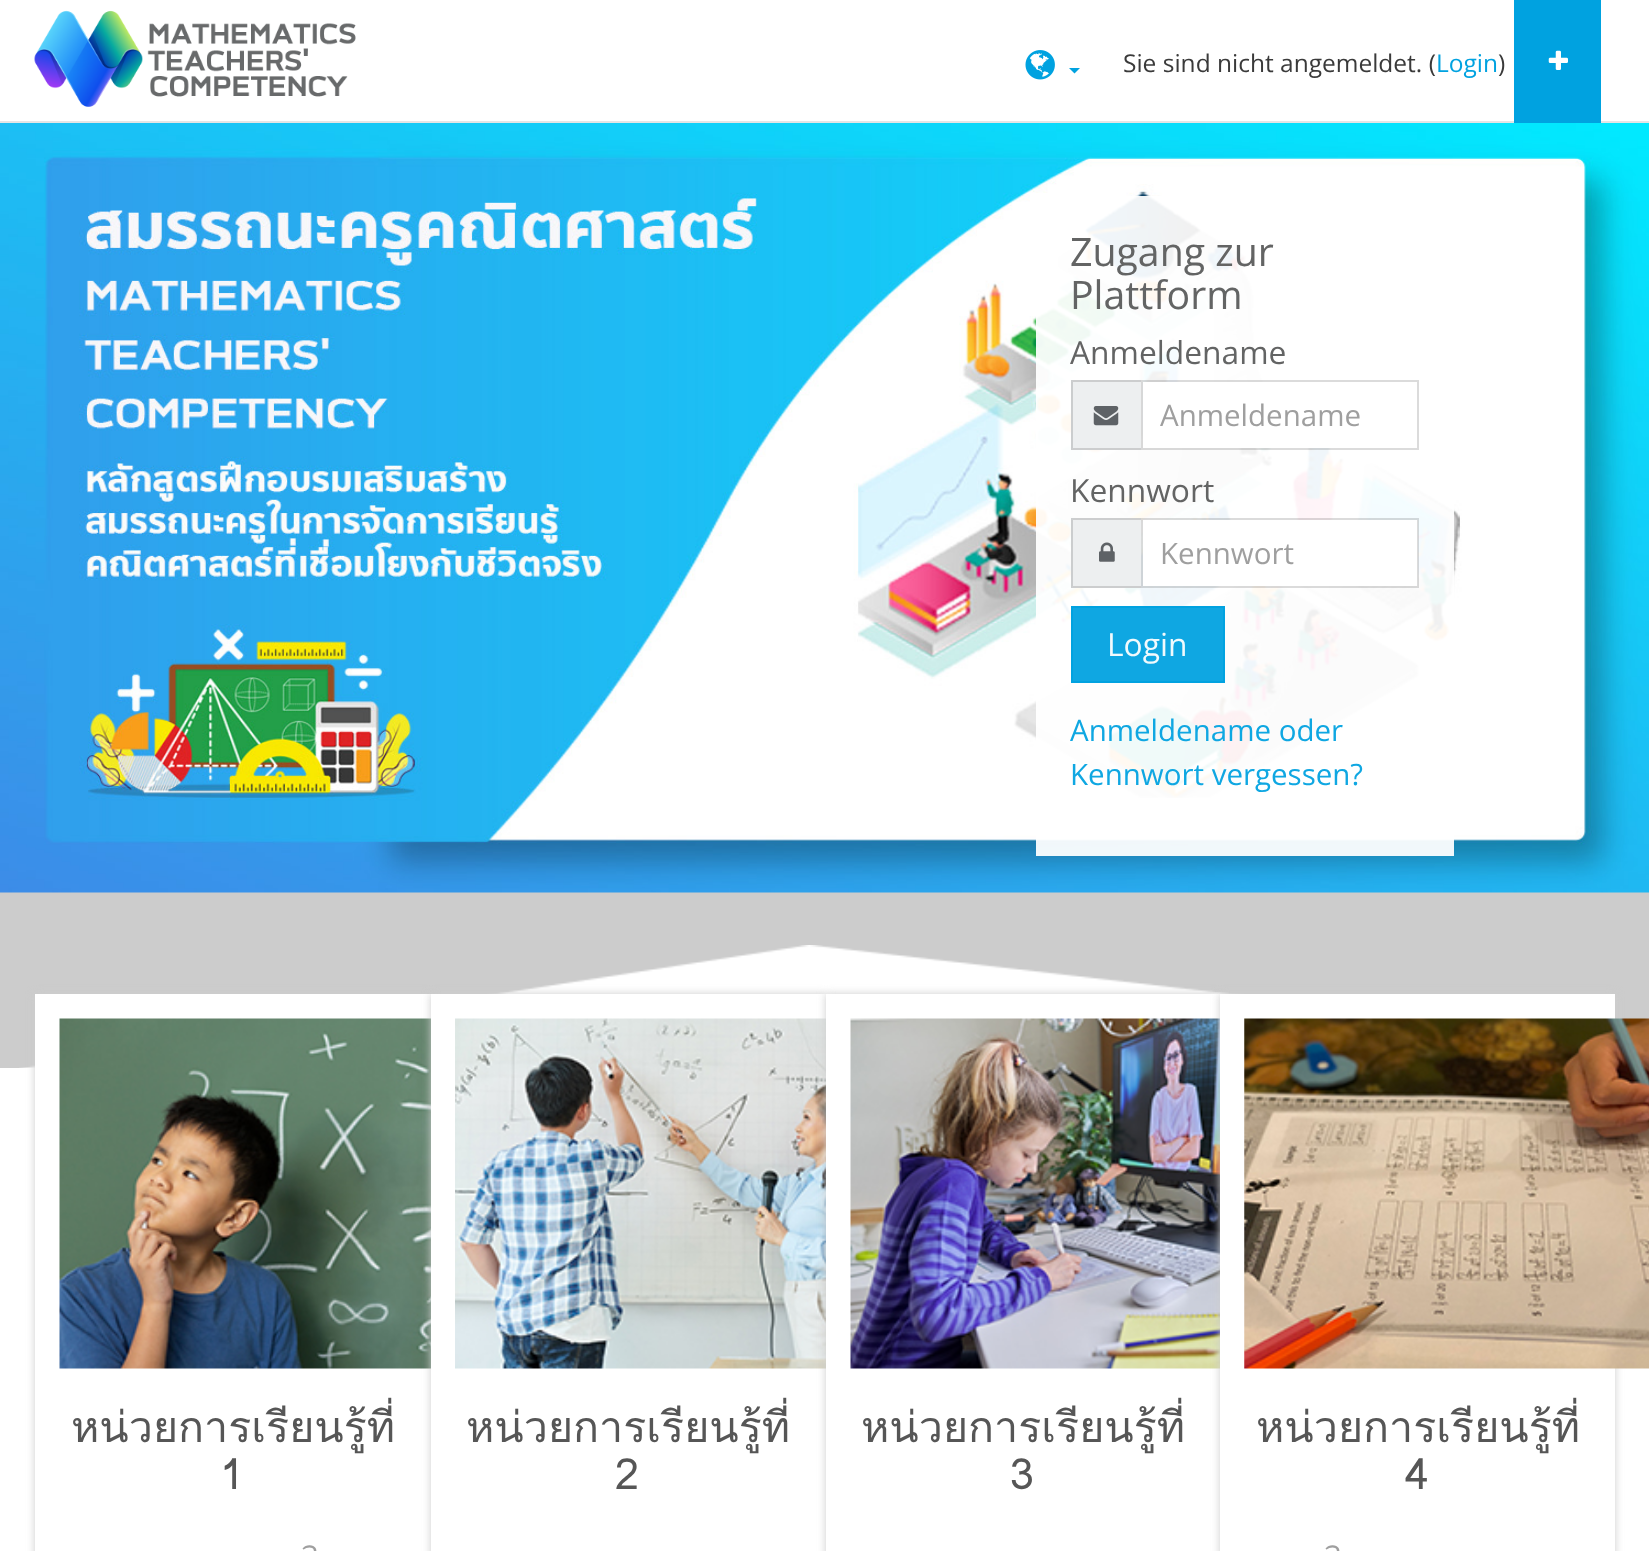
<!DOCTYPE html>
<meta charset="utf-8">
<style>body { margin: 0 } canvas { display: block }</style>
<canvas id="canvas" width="1649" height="1551"></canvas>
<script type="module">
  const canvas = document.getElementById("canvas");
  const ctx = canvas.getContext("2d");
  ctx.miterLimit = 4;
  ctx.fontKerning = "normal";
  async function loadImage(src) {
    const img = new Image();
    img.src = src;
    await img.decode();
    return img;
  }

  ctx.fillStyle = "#ffffff";
  ctx.fillRect(0, 0, 1649, 1551);
  ctx.fillStyle = "#e5e5e5";
  ctx.fillRect(0, 121, 1649, 2);
  ctx.drawImage(await loadImage("img1.png"), 34, 10, 322, 97);
  ctx.drawImage(await loadImage("img2.png"), 1025, 50, 30, 30);
  ctx.fillStyle = "#00a2e0";
  ctx.beginPath();
  ctx.moveTo(1069, 68);
  ctx.lineTo(1080, 68);
  ctx.lineTo(1074.5, 73.5);
  ctx.closePath();
  ctx.fill();
  ctx.font = "24.5px Open Sans";
  ctx.fillStyle = "#3a3a3a";
  ctx.fillText("Sie sind nicht angemeldet. (", 1123, 72);
  ctx.fillStyle = "#00a2e0";
  ctx.fillText("Login", 1436, 72);
  ctx.fillStyle = "#3a3a3a";
  ctx.fillText(")", 1498, 72);
  ctx.fillStyle = "#00a2e0";
  ctx.fillRect(1514, 0, 87, 123);
  ctx.drawImage(await loadImage("img3.png"), 1548, 50, 20, 20);
  ctx.fillStyle = "#cccccc";
  ctx.fillRect(0, 892, 1649, 176);
  ctx.drawImage(await loadImage("img4.png"), 0, 123, 1649, 770);
  ctx.fillStyle = "rgba(255, 255, 255, 0.94)";
  ctx.fillRect(1036, 196, 418, 660);
  ctx.font = "39.25px Open Sans";
  ctx.fillStyle = "#636464";
  ctx.fillText("Zugang zur", 1070, 266);
  ctx.fillText("Plattform", 1070, 309);
  ctx.font = "31.75px Open Sans";
  ctx.fillText("Anmeldename", 1070, 364);
  ctx.fillStyle = "rgba(236, 238, 239, 0.94)";
  ctx.fillRect(1071, 380, 70, 70);
  ctx.fillStyle = "#cccdce";
  ctx.beginPath();
  ctx.moveTo(1071, 380);
  ctx.lineTo(1141, 380);
  ctx.lineTo(1141, 382);
  ctx.lineTo(1073, 382);
  ctx.closePath();
  ctx.fill();
  ctx.beginPath();
  ctx.moveTo(1141, 450);
  ctx.lineTo(1071, 450);
  ctx.lineTo(1073, 448);
  ctx.lineTo(1141, 448);
  ctx.closePath();
  ctx.fill();
  ctx.fillStyle = "rgba(0, 0, 0, 0.14)";
  ctx.beginPath();
  ctx.moveTo(1071, 450);
  ctx.lineTo(1071, 380);
  ctx.lineTo(1073, 382);
  ctx.lineTo(1073, 448);
  ctx.closePath();
  ctx.fill();
  ctx.drawImage(await loadImage("img5.png"), 1093, 406, 26, 20);
  ctx.fillStyle = "rgba(255, 255, 255, 0.94)";
  ctx.fillRect(1143, 382, 188, 66);
  ctx.strokeStyle = "rgba(0, 0, 0, 0.14)";
  ctx.lineWidth = 2;
  ctx.strokeRect(1142, 381, 276, 68);
  ctx.font = "29.5px Open Sans";
  ctx.fillStyle = "#9f9f9f";
  ctx.fillText("Anmeldename", 1160, 426);
  ctx.font = "31.75px Open Sans";
  ctx.fillStyle = "#636464";
  ctx.fillText("Kennwort", 1070, 502);
  ctx.fillStyle = "rgba(236, 238, 239, 0.94)";
  ctx.fillRect(1071, 518, 70, 70);
  ctx.fillStyle = "#cccdce";
  ctx.beginPath();
  ctx.moveTo(1071, 518);
  ctx.lineTo(1141, 518);
  ctx.lineTo(1141, 520);
  ctx.lineTo(1073, 520);
  ctx.closePath();
  ctx.fill();
  ctx.beginPath();
  ctx.moveTo(1141, 588);
  ctx.lineTo(1071, 588);
  ctx.lineTo(1073, 586);
  ctx.lineTo(1141, 586);
  ctx.closePath();
  ctx.fill();
  ctx.fillStyle = "rgba(0, 0, 0, 0.14)";
  ctx.beginPath();
  ctx.moveTo(1071, 588);
  ctx.lineTo(1071, 518);
  ctx.lineTo(1073, 520);
  ctx.lineTo(1073, 586);
  ctx.closePath();
  ctx.fill();
  ctx.drawImage(await loadImage("img6.png"), 1099, 542, 16, 20);
  ctx.fillStyle = "rgba(255, 255, 255, 0.94)";
  ctx.fillRect(1143, 520, 275, 66);
  ctx.strokeRect(1142, 519, 276, 68);
  ctx.font = "29.5px Open Sans";
  ctx.fillStyle = "#9f9f9f";
  ctx.fillText("Kennwort", 1160, 564);
  ctx.fillStyle = "rgba(0, 162, 224, 0.94)";
  ctx.beginPath();
  ctx.rect(1072, 607, 152, 75);
  ctx.fill();
  ctx.strokeStyle = "#01a2e0";
  ctx.stroke();
  ctx.font = "31.75px Open Sans";
  ctx.fillStyle = "#f1fafd";
  ctx.fillText("Login", 1107, 656);
  ctx.font = "29.5px Open Sans";
  ctx.fillStyle = "#0fa7e2";
  ctx.fillText("Anmeldename oder", 1070, 741);
  ctx.fillText("Kennwort vergessen?", 1070, 785);
  ctx.drawImage(await loadImage("img7.png"), 19, 945, 1225, 123);
  ctx.fillStyle = "#cccccc";
  ctx.filter = "blur(4.5px)";
  ctx.beginPath();
  ctx.rect(35, 994, 396, 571);
  ctx.fill();
  ctx.filter = "none";
  ctx.fillStyle = "#ffffff";
  ctx.fillRect(35, 994, 396, 557);
  ctx.drawImage(await loadImage("img8.png"), 59, 1018, 372, 351);
  ctx.font = "43px Loma";
  ctx.fillStyle = "#565656";
  ctx.fillText("หน่วยการเรียนรู้ที่", 71, 1442);
  ctx.fillText("1", 220, 1489);
  ctx.font = "31.75px Loma";
  ctx.fillStyle = "#9f9f9f";
  ctx.fillText("ว", 301, 1563);
  ctx.fillStyle = "#cccccc";
  ctx.filter = "blur(4.5px)";
  ctx.beginPath();
  ctx.rect(431, 994, 395, 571);
  ctx.fill();
  ctx.filter = "none";
  ctx.fillStyle = "#ffffff";
  ctx.fillRect(431, 994, 395, 557);
  ctx.drawImage(await loadImage("img9.png"), 455, 1018, 371, 351);
  ctx.font = "43px Loma";
  ctx.fillStyle = "#565656";
  ctx.fillText("หน่วยการเรียนรู้ที่", 466, 1442);
  ctx.fillText("2", 615, 1489);
  ctx.fillStyle = "#cccccc";
  ctx.filter = "blur(4.5px)";
  ctx.beginPath();
  ctx.rect(826, 994, 394, 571);
  ctx.fill();
  ctx.filter = "none";
  ctx.fillStyle = "#ffffff";
  ctx.fillRect(826, 994, 394, 557);
  ctx.drawImage(await loadImage("img10.png"), 850, 1018, 370, 351);
  ctx.fillStyle = "#565656";
  ctx.fillText("หน่วยการเรียนรู้ที่", 861, 1442);
  ctx.fillText("3", 1010, 1489);
  ctx.fillStyle = "#cccccc";
  ctx.filter = "blur(4.5px)";
  ctx.beginPath();
  ctx.rect(1220, 994, 395, 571);
  ctx.fill();
  ctx.filter = "none";
  ctx.fillStyle = "#ffffff";
  ctx.fillRect(1220, 994, 395, 557);
  ctx.drawImage(await loadImage("img11.png"), 1244, 1018, 405, 351);
  ctx.fillStyle = "#565656";
  ctx.fillText("หน่วยการเรียนรู้ที่", 1256, 1442);
  ctx.fillText("4", 1405, 1489);
  ctx.font = "31.75px Loma";
  ctx.fillStyle = "#9f9f9f";
  ctx.fillText("ว", 1324, 1563);
</script>
